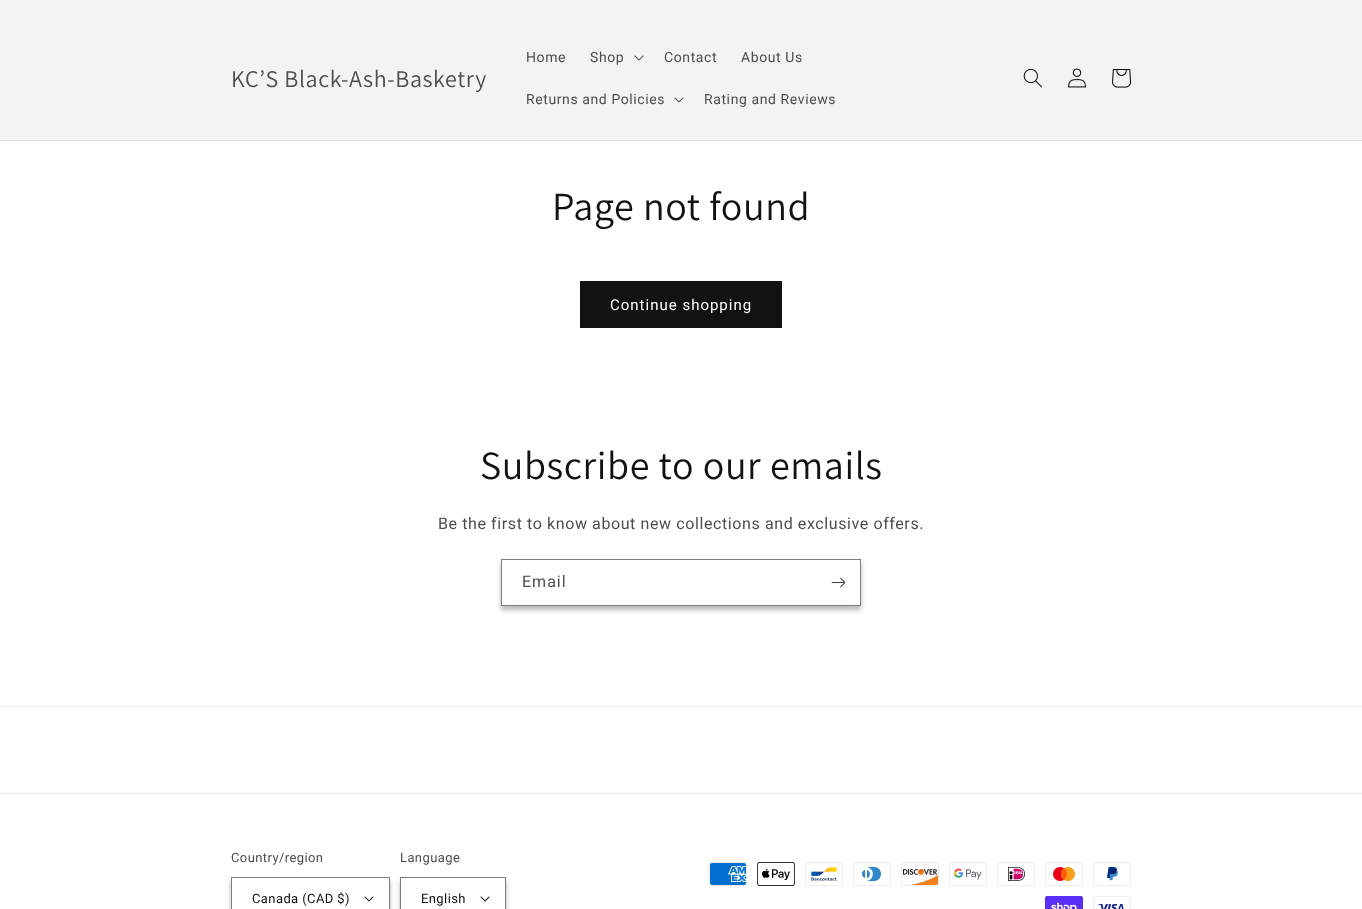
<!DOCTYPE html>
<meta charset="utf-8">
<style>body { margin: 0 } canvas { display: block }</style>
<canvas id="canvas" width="1362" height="909"></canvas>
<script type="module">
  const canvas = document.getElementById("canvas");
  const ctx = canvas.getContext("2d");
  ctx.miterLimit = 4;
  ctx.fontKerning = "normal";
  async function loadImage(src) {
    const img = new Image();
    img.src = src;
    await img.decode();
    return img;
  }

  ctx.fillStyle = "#ffffff";
  ctx.fillRect(0, 0, 1362, 909);
  ctx.fillStyle = "#f3f3f3";
  ctx.fillRect(0, 0, 1362, 140);
  ctx.fillStyle = "#e1e1e1";
  ctx.fillRect(0, 140, 1362, 1);
  ctx.letterSpacing = "0.6px";
  ctx.font = "24px Assistant";
  ctx.fillStyle = "#4d4d4d";
  ctx.fillText("KC’S Black-Ash-Basketry", 231, 87);
  ctx.font = "14px Roboto";
  ctx.fillText("Home", 526, 62);
  ctx.fillText("Shop", 590, 62);
  ctx.drawImage(await loadImage("img1.png"), 634, 55, 10, 6);
  ctx.fillText("Contact", 664, 62);
  ctx.fillText("About Us", 741, 62);
  ctx.fillText("Returns and Policies", 526, 104);
  ctx.drawImage(await loadImage("img1.png"), 674, 97, 10, 6);
  ctx.fillText("Rating and Reviews", 704, 104);
  ctx.drawImage(await loadImage("img2.png"), 1023, 68, 19, 20);
  ctx.drawImage(await loadImage("img3.png"), 1068, 68, 18, 20);
  ctx.drawImage(await loadImage("img4.png"), 1112, 69, 20, 19);
  ctx.font = "40px Assistant";
  ctx.fillStyle = "#121212";
  ctx.fillText("Page not found", 552, 220);
  ctx.fillRect(580, 281, 202, 47);
  ctx.letterSpacing = "1px";
  ctx.font = "15px Roboto";
  ctx.fillStyle = "#ffffff";
  ctx.fillText("Continue shopping", 610, 310);
  ctx.letterSpacing = "0.6px";
  ctx.font = "40px Assistant";
  ctx.fillStyle = "#121212";
  ctx.fillText("Subscribe to our emails", 480, 479);
  ctx.font = "16px Roboto";
  ctx.fillStyle = "#4d4d4d";
  ctx.fillText("Be the first to know about new collections and exclusive offers.", 438, 529);
  ctx.save();
  ctx.beginPath();
  ctx.moveTo(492, 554);
  ctx.lineTo(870, 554);
  ctx.lineTo(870, 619);
  ctx.lineTo(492, 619);
  ctx.closePath();
  ctx.moveTo(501, 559);
  ctx.lineTo(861, 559);
  ctx.lineTo(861, 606);
  ctx.lineTo(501, 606);
  ctx.closePath();
  ctx.clip("evenodd");
  ctx.fillStyle = "rgba(18, 18, 18, 0.3)";
  ctx.filter = "blur(2.5px)";
  ctx.beginPath();
  ctx.rect(501, 563, 360, 47);
  ctx.fill();
  ctx.filter = "none";
  ctx.restore();
  ctx.strokeStyle = "#7d7d7d";
  ctx.strokeRect(501.5, 559.5, 359, 46);
  ctx.letterSpacing = "1px";
  ctx.fillText("Email", 522, 587);
  ctx.drawImage(await loadImage("img5.png"), 831, 577, 15, 11);
  ctx.fillStyle = "#ececec";
  ctx.fillRect(0, 706, 1362, 1);
  ctx.fillRect(0, 793, 1362, 1);
  ctx.letterSpacing = "0.4px";
  ctx.font = "13px Roboto";
  ctx.fillStyle = "#4d4d4d";
  ctx.fillText("Country/region", 231, 862);
  ctx.save();
  ctx.beginPath();
  ctx.moveTo(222, 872);
  ctx.lineTo(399, 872);
  ctx.lineTo(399, 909);
  ctx.lineTo(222, 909);
  ctx.closePath();
  ctx.moveTo(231, 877);
  ctx.lineTo(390, 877);
  ctx.lineTo(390, 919);
  ctx.lineTo(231, 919);
  ctx.closePath();
  ctx.clip("evenodd");
  ctx.fillStyle = "rgba(18, 18, 18, 0.3)";
  ctx.filter = "blur(2.5px)";
  ctx.beginPath();
  ctx.rect(231, 881, 159, 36);
  ctx.fill();
  ctx.filter = "none";
  ctx.restore();
  ctx.drawImage(await loadImage("img6.png"), 364, 896, 10, 6);
  ctx.strokeRect(231.5, 877.5, 158, 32);
  ctx.fillStyle = "#121212";
  ctx.fillText("Canada (CAD $)", 252, 903);
  ctx.fillStyle = "#4d4d4d";
  ctx.fillText("Language", 400, 862);
  ctx.save();
  ctx.beginPath();
  ctx.moveTo(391, 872);
  ctx.lineTo(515, 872);
  ctx.lineTo(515, 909);
  ctx.lineTo(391, 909);
  ctx.closePath();
  ctx.moveTo(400, 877);
  ctx.lineTo(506, 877);
  ctx.lineTo(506, 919);
  ctx.lineTo(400, 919);
  ctx.closePath();
  ctx.clip("evenodd");
  ctx.fillStyle = "rgba(18, 18, 18, 0.3)";
  ctx.filter = "blur(2.5px)";
  ctx.beginPath();
  ctx.rect(400, 881, 106, 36);
  ctx.fill();
  ctx.filter = "none";
  ctx.restore();
  ctx.drawImage(await loadImage("img6.png"), 480, 896, 10, 6);
  ctx.strokeRect(400.5, 877.5, 105, 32);
  ctx.fillStyle = "#121212";
  ctx.fillText("English", 421, 903);
  ctx.drawImage(await loadImage("img7.png"), 709, 862, 38, 24);
  ctx.drawImage(await loadImage("img8.png"), 757, 862, 38, 24);
  ctx.drawImage(await loadImage("img9.png"), 805, 862, 38, 24);
  ctx.drawImage(await loadImage("img10.png"), 853, 862, 38, 24);
  ctx.drawImage(await loadImage("img11.png"), 901, 862, 38, 24);
  ctx.drawImage(await loadImage("img12.png"), 949, 862, 38, 24);
  ctx.drawImage(await loadImage("img13.png"), 997, 862, 38, 24);
  ctx.drawImage(await loadImage("img14.png"), 1045, 862, 38, 24);
  ctx.drawImage(await loadImage("img15.png"), 1093, 862, 38, 24);
  ctx.drawImage(await loadImage("img16.png"), 1045, 896, 38, 13);
  ctx.drawImage(await loadImage("img17.png"), 1093, 896, 38, 13);
</script>
